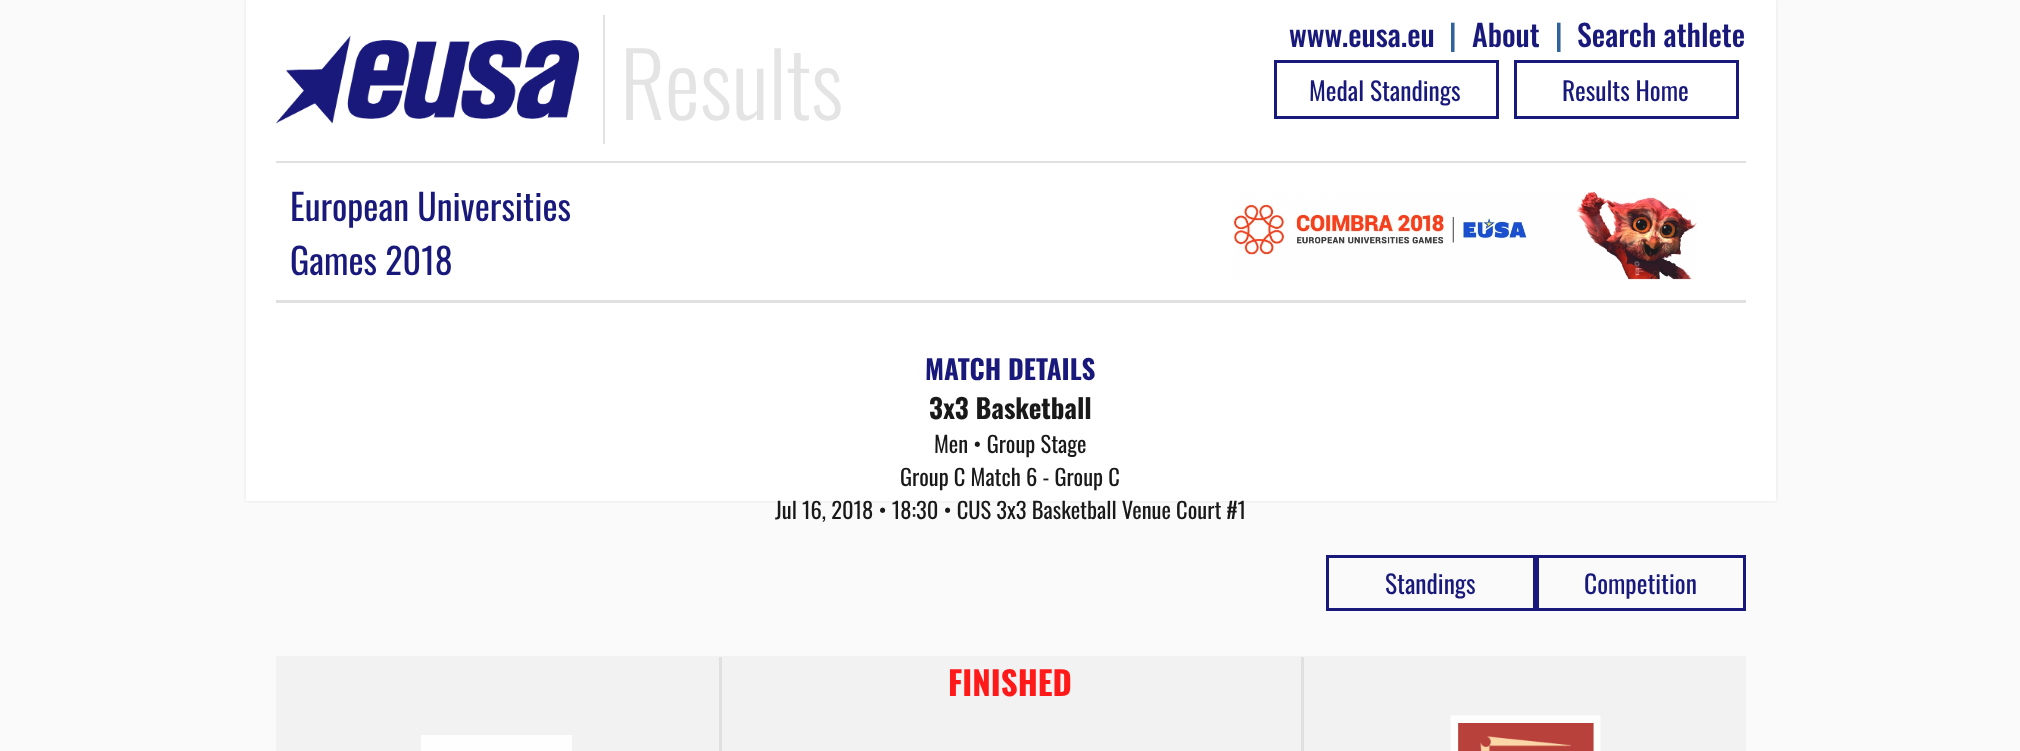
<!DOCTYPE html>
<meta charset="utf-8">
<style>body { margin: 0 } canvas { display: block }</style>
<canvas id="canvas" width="2020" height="751"></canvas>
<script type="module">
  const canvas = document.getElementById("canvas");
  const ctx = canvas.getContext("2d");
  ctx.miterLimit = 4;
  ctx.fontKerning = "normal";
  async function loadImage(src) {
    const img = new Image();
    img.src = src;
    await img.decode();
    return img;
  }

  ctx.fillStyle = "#fafafa";
  ctx.fillRect(0, 0, 2020, 751);
  ctx.fillStyle = "#e0e0e0";
  ctx.filter = "blur(1.5px)";
  ctx.beginPath();
  ctx.rect(246, 0, 1530, 501);
  ctx.fill();
  ctx.filter = "none";
  ctx.fillStyle = "#ffffff";
  ctx.fillRect(246, 0, 1530, 501);
  ctx.fillStyle = "#e0e0e0";
  ctx.fillRect(276, 161, 1470, 2);
  ctx.fillStyle = "#e2e2e2";
  ctx.fillRect(603, 15, 2, 129);
  ctx.drawImage(await loadImage("img1.png"), 276, 35, 303, 89);
  ctx.font = "300 88.5px Oswald";
  ctx.fillStyle = "#e4e4e4";
  ctx.fillText("Results", 620, 120);
  ctx.font = "500 30px Oswald";
  ctx.fillStyle = "#19197c";
  ctx.fillText("www.eusa.eu", 1289, 47);
  ctx.fillStyle = "#30629c";
  ctx.fillText("|", 1449, 47);
  ctx.fillStyle = "#19197c";
  ctx.fillText("About", 1472, 47);
  ctx.fillStyle = "#30629c";
  ctx.fillText("|", 1555, 47);
  ctx.fillStyle = "#19197c";
  ctx.fillText("Search athlete", 1577, 47);
  ctx.strokeStyle = "#19197c";
  ctx.lineWidth = 3;
  ctx.strokeRect(1275.5, 61.5, 222, 56);
  ctx.font = "25.5px Oswald";
  ctx.fillText("Medal Standings", 1309, 101);
  ctx.strokeRect(1515.5, 61.5, 222, 56);
  ctx.fillText("Results Home", 1562, 101);
  ctx.fillStyle = "#e0e0e0";
  ctx.fillRect(276, 300, 1470, 3);
  ctx.font = "36px Oswald";
  ctx.fillStyle = "#19197c";
  ctx.fillText("European Universities", 290, 221);
  ctx.fillText("Games 2018", 290, 275);
  ctx.drawImage(await loadImage("img2.png"), 1233, 191, 464, 89);
  ctx.font = "bold 27px Oswald";
  ctx.fillText("MATCH DETAILS", 925, 380);
  ctx.fillStyle = "#191919";
  ctx.fillText("3x3 Basketball", 929, 419);
  ctx.font = "22.5px Oswald";
  ctx.fillText("Men • Group Stage", 934, 453);
  ctx.fillText("Group C Match 6 - Group C", 900, 486);
  ctx.fillText("Jul 16, 2018 • 18:30 • CUS 3x3 Basketball Venue Court #1", 775, 519);
  ctx.strokeRect(1327.5, 556.5, 207, 53);
  ctx.font = "25.5px Oswald";
  ctx.fillStyle = "#19197c";
  ctx.fillText("Standings", 1385, 594);
  ctx.strokeRect(1537.5, 556.5, 207, 53);
  ctx.fillText("Competition", 1584, 594);
  ctx.fillStyle = "#f2f2f2";
  ctx.fillRect(276, 656, 1470, 95);
  ctx.fillStyle = "#e0e0e0";
  ctx.fillRect(1301, 657, 3, 94);
  ctx.fillRect(719, 657, 3, 94);
  ctx.font = "bold 33px Oswald";
  ctx.fillStyle = "#ff1919";
  ctx.fillText("FINISHED", 948, 696);
  ctx.fillStyle = "#fefefe";
  ctx.fillRect(421, 735, 151, 16);
  ctx.drawImage(await loadImage("img3.png"), 1450, 715, 151, 36);
</script>
